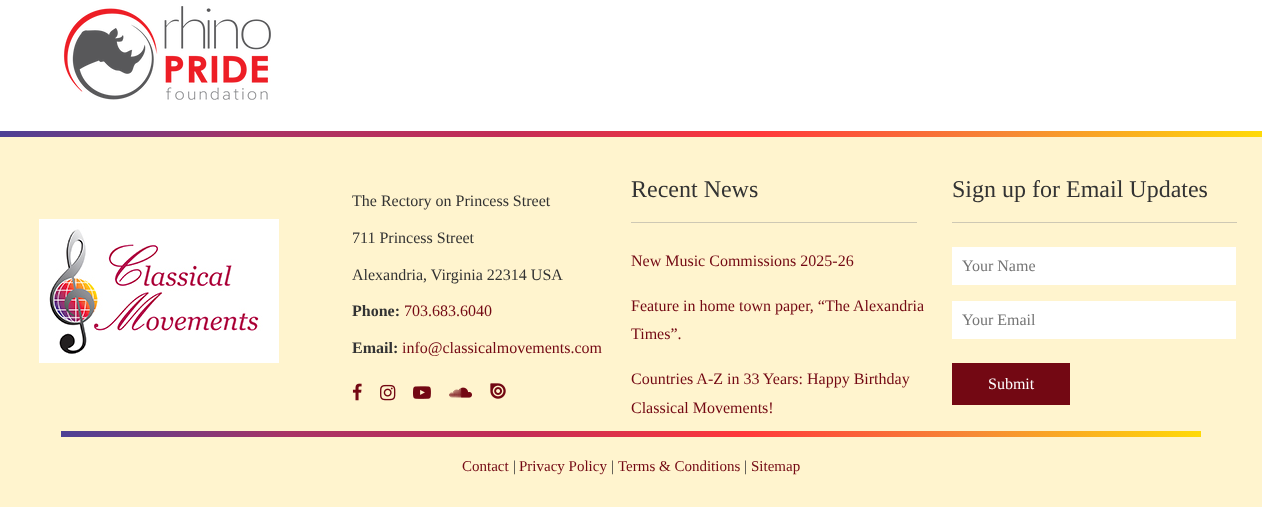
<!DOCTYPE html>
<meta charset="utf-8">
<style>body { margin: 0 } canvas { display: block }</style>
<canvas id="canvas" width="1262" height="507"></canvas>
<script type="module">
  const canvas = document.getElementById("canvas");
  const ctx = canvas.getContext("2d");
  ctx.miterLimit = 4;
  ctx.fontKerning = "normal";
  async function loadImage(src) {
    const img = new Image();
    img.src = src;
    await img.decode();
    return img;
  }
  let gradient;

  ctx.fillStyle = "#ffffff";
  ctx.fillRect(0, 0, 1262, 507);
  ctx.drawImage(await loadImage("img1.png"), 63, 6, 208, 94);
  gradient = ctx.createLinearGradient(0, 134, 1262, 134);
  gradient.addColorStop(0, "#4d4095");
  gradient.addColorStop(0.2, "#a93365");
  gradient.addColorStop(0.4, "#c32c56");
  gradient.addColorStop(0.6, "#ff383b");
  gradient.addColorStop(0.8, "#f68935");
  gradient.addColorStop(1, "#ffda07");
  ctx.fillStyle = gradient;
  ctx.fillRect(0, 131, 1262, 6);
  ctx.fillStyle = "#fff4ce";
  ctx.fillRect(0, 137, 1262, 370);
  ctx.drawImage(await loadImage("img2.png"), 39, 219, 240, 144);
  ctx.font = "16px Liberation Serif";
  ctx.fillStyle = "#333333";
  ctx.fillText("The Rectory on Princess Street", 352, 206);
  ctx.fillText("711 Princess Street", 352, 243);
  ctx.fillText("Alexandria, Virginia 22314 USA", 352, 280);
  ctx.font = "bold 16px Liberation Serif";
  ctx.fillText("Phone:", 352, 316);
  ctx.font = "16px Liberation Serif";
  ctx.fillStyle = "#730813";
  ctx.fillText("703.683.6040", 404, 316);
  ctx.font = "bold 16px Liberation Serif";
  ctx.fillStyle = "#333333";
  ctx.fillText("Email:", 352, 353);
  ctx.font = "16px Liberation Serif";
  ctx.fillStyle = "#730813";
  ctx.fillText("info@classicalmovements.com", 402, 353);
  ctx.drawImage(await loadImage("img3.png"), 352, 383, 10, 18);
  ctx.drawImage(await loadImage("img4.png"), 380, 384, 16, 17);
  ctx.drawImage(await loadImage("img5.png"), 413, 386, 18, 13);
  ctx.drawImage(await loadImage("img6.png"), 449, 387, 23, 11);
  ctx.drawImage(await loadImage("img7.png"), 490, 383, 16, 16);
  ctx.fillStyle = "#cec8b4";
  ctx.fillRect(631, 222, 286, 1);
  ctx.font = "24px Liberation Serif";
  ctx.fillStyle = "#333333";
  ctx.fillText("Recent News", 631, 197);
  ctx.font = "16px Liberation Serif";
  ctx.fillStyle = "#730813";
  ctx.fillText("New Music Commissions 2025-26", 631, 266);
  ctx.fillText("Feature in home town paper, “The Alexandria", 631, 311);
  ctx.fillText("Times”.", 631, 339);
  ctx.fillText("Countries A-Z in 33 Years: Happy Birthday", 631, 384);
  ctx.fillText("Classical Movements!", 631, 413);
  ctx.fillStyle = "#cec8b4";
  ctx.fillRect(952, 222, 285, 1);
  ctx.font = "24px Liberation Serif";
  ctx.fillStyle = "#333333";
  ctx.fillText("Sign up for Email Updates", 952, 197);
  ctx.fillStyle = "#ffffff";
  ctx.fillRect(952, 247, 284, 38);
  ctx.font = "16px Liberation Serif";
  ctx.fillStyle = "#757575";
  ctx.fillText("Your Name", 962, 271);
  ctx.fillStyle = "#ffffff";
  ctx.fillRect(952, 301, 284, 38);
  ctx.fillStyle = "#757575";
  ctx.fillText("Your Email", 962, 325);
  ctx.fillStyle = "#730813";
  ctx.fillRect(952, 363, 118, 42);
  ctx.fillStyle = "#ffffff";
  ctx.fillText("Submit", 988, 389);
  gradient = ctx.createLinearGradient(61, 434, 1201, 434);
  gradient.addColorStop(0, "#4d4095");
  gradient.addColorStop(0.2, "#a93365");
  gradient.addColorStop(0.4, "#c32c56");
  gradient.addColorStop(0.6, "#ff383b");
  gradient.addColorStop(0.8, "#f68935");
  gradient.addColorStop(1, "#ffda07");
  ctx.fillStyle = gradient;
  ctx.fillRect(61, 431, 1140, 6);
  ctx.font = "15px Liberation Serif";
  ctx.fillStyle = "#730813";
  ctx.fillText("Contact", 462, 471);
  ctx.fillStyle = "#333333";
  ctx.fillText("|", 513, 471);
  ctx.fillStyle = "#730813";
  ctx.fillText("Privacy Policy", 519, 471);
  ctx.fillStyle = "#333333";
  ctx.fillText("|", 611, 471);
  ctx.fillStyle = "#730813";
  ctx.fillText("Terms & Conditions", 618, 471);
  ctx.fillStyle = "#333333";
  ctx.fillText("|", 744, 471);
  ctx.fillStyle = "#730813";
  ctx.fillText("Sitemap", 751, 471);
</script>
